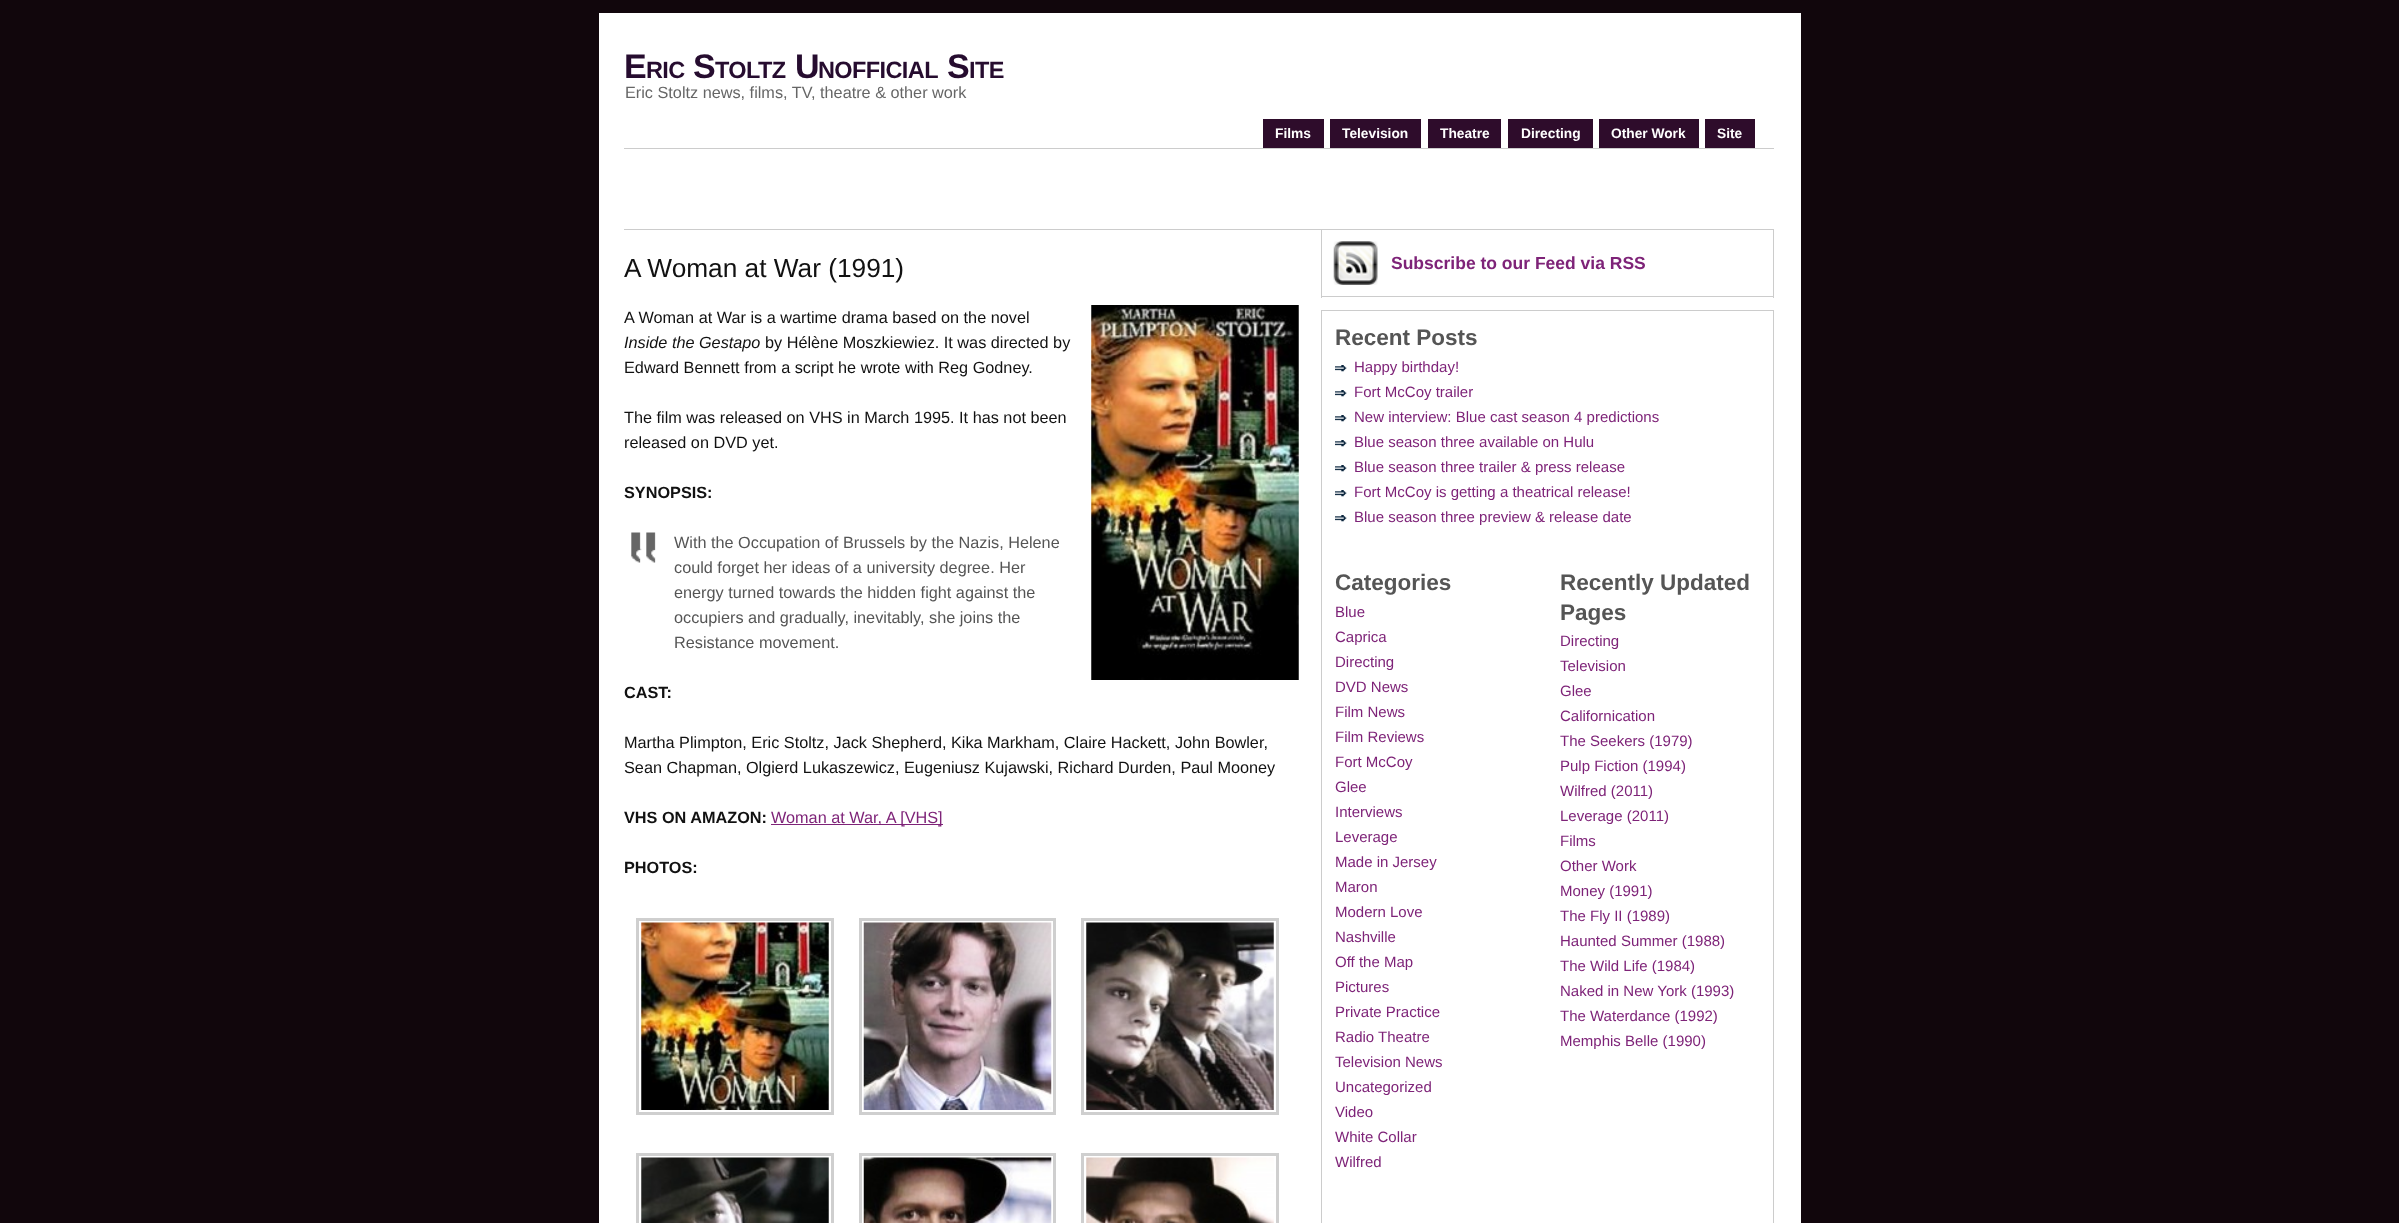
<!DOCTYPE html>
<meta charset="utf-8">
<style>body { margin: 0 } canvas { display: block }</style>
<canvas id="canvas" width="2399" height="1223"></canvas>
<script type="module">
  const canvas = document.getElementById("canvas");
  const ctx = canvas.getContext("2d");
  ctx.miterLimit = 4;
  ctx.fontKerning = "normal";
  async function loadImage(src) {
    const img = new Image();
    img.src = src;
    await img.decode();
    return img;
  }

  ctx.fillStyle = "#11060c";
  ctx.fillRect(0, 0, 2399, 1223);
  ctx.fillStyle = "#ffffff";
  ctx.fillRect(599, 13, 1202, 1210);
  ctx.letterSpacing = "-0.6px";
  ctx.font = "bold 34px Liberation Sans";
  ctx.fillStyle = "#260c2f";
  ctx.fillText("E", 624, 78);
  ctx.font = "bold 23.5px Liberation Sans";
  ctx.fillText("RIC", 646, 78);
  ctx.font = "bold 34px Liberation Sans";
  ctx.fillText("S", 693, 78);
  ctx.font = "bold 23.5px Liberation Sans";
  ctx.fillText("TOLTZ", 715, 78);
  ctx.font = "bold 34px Liberation Sans";
  ctx.fillText("U", 795, 78);
  ctx.font = "bold 23.5px Liberation Sans";
  ctx.fillText("NOFFICIAL", 818, 78);
  ctx.font = "bold 34px Liberation Sans";
  ctx.fillText("S", 947, 78);
  ctx.font = "bold 23.5px Liberation Sans";
  ctx.fillText("ITE", 969, 78);
  ctx.letterSpacing = "0px";
  ctx.font = "16.25px Liberation Sans";
  ctx.fillStyle = "#666666";
  ctx.fillText("Eric Stoltz news, films, TV, theatre & other work", 625, 98);
  ctx.fillStyle = "#2e0c2b";
  ctx.fillRect(1263, 119, 61, 29);
  ctx.font = "bold 13.75px Liberation Sans";
  ctx.fillStyle = "#ffffff";
  ctx.fillText("Films", 1275, 138);
  ctx.fillStyle = "#2e0c2b";
  ctx.fillRect(1330, 119, 91, 29);
  ctx.fillStyle = "#ffffff";
  ctx.fillText("Television", 1342, 138);
  ctx.fillStyle = "#2e0c2b";
  ctx.fillRect(1428, 119, 73, 29);
  ctx.fillStyle = "#ffffff";
  ctx.fillText("Theatre", 1440, 138);
  ctx.fillStyle = "#2e0c2b";
  ctx.fillRect(1508, 119, 85, 29);
  ctx.fillStyle = "#ffffff";
  ctx.fillText("Directing", 1521, 138);
  ctx.fillStyle = "#2e0c2b";
  ctx.fillRect(1599, 119, 100, 29);
  ctx.fillStyle = "#ffffff";
  ctx.fillText("Other Work", 1611, 138);
  ctx.fillStyle = "#2e0c2b";
  ctx.fillRect(1705, 119, 50, 29);
  ctx.fillStyle = "#ffffff";
  ctx.fillText("Site", 1717, 138);
  ctx.fillStyle = "#cccccc";
  ctx.fillRect(624, 148, 1150, 1);
  ctx.fillRect(624, 229, 1150, 1);
  ctx.font = "26.25px Liberation Sans";
  ctx.fillStyle = "#111111";
  ctx.fillText("A Woman at War (1991)", 624, 277);
  ctx.font = "16.25px Liberation Sans";
  ctx.fillText("A Woman at War is a wartime drama based on the novel", 624, 323);
  ctx.drawImage(await loadImage("img1.png"), 1091, 305, 208, 375);
  ctx.font = "italic 16.25px Liberation Sans";
  ctx.fillText("Inside the Gestapo", 624, 348);
  ctx.font = "16.25px Liberation Sans";
  ctx.fillText("by Hélène Moszkiewiez. It was directed by", 765, 348);
  ctx.fillText("Edward Bennett from a script he wrote with Reg Godney.", 624, 373);
  ctx.fillText("The film was released on VHS in March 1995. It has not been", 624, 423);
  ctx.fillText("released on DVD yet.", 624, 448);
  ctx.font = "bold 16.25px Liberation Sans";
  ctx.fillText("SYNOPSIS:", 624, 498);
  ctx.drawImage(await loadImage("img2.png"), 631, 532, 25, 31);
  ctx.font = "16.25px Liberation Sans";
  ctx.fillStyle = "#555555";
  ctx.fillText("With the Occupation of Brussels by the Nazis, Helene", 674, 548);
  ctx.fillText("could forget her ideas of a university degree. Her", 674, 573);
  ctx.fillText("energy turned towards the hidden fight against the", 674, 598);
  ctx.fillText("occupiers and gradually, inevitably, she joins the", 674, 623);
  ctx.fillText("Resistance movement.", 674, 648);
  ctx.font = "bold 16.25px Liberation Sans";
  ctx.fillStyle = "#111111";
  ctx.fillText("CAST:", 624, 698);
  ctx.font = "16.25px Liberation Sans";
  ctx.fillText("Martha Plimpton, Eric Stoltz, Jack Shepherd, Kika Markham, Claire Hackett, John Bowler,", 624, 748);
  ctx.fillText("Sean Chapman, Olgierd Lukaszewicz, Eugeniusz Kujawski, Richard Durden, Paul Mooney", 624, 773);
  ctx.font = "bold 16.25px Liberation Sans";
  ctx.fillText("VHS ON AMAZON:", 624, 823);
  ctx.fillStyle = "#7e2378";
  ctx.fillRect(771, 824, 172, 1);
  ctx.font = "16.25px Liberation Sans";
  ctx.fillText("Woman at War, A [VHS]", 771, 823);
  ctx.font = "bold 16.25px Liberation Sans";
  ctx.fillStyle = "#111111";
  ctx.fillText("PHOTOS:", 624, 873);
  ctx.strokeStyle = "#cfcfcf";
  ctx.lineWidth = 3;
  ctx.strokeRect(637.5, 919.5, 195, 194);
  ctx.drawImage(await loadImage("img3.png"), 641, 922, 188, 188);
  ctx.strokeRect(860.5, 919.5, 194, 194);
  ctx.drawImage(await loadImage("img4.png"), 863, 922, 189, 188);
  ctx.strokeRect(1082.5, 919.5, 195, 194);
  ctx.drawImage(await loadImage("img5.png"), 1086, 922, 188, 188);
  ctx.strokeRect(637.5, 1154.5, 195, 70);
  ctx.drawImage(await loadImage("img6.png"), 641, 1157, 188, 66);
  ctx.strokeRect(860.5, 1154.5, 194, 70);
  ctx.drawImage(await loadImage("img7.png"), 863, 1157, 189, 66);
  ctx.strokeRect(1082.5, 1154.5, 195, 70);
  ctx.drawImage(await loadImage("img8.png"), 1086, 1157, 188, 66);
  ctx.fillStyle = "#cccccc";
  ctx.fillRect(1773, 230, 1, 68);
  ctx.fillRect(1321, 296, 453, 1);
  ctx.fillRect(1321, 230, 1, 68);
  ctx.drawImage(await loadImage("img9.png"), 1333, 241, 45, 44);
  ctx.font = "bold 17.5px Liberation Sans";
  ctx.fillStyle = "#7e2378";
  ctx.fillText("Subscribe to our Feed via RSS", 1391, 269);
  ctx.fillStyle = "#cccccc";
  ctx.fillRect(1321, 310, 453, 1);
  ctx.fillRect(1773, 310, 1, 913);
  ctx.fillRect(1321, 310, 1, 913);
  ctx.font = "bold 22.5px Liberation Sans";
  ctx.fillStyle = "#555555";
  ctx.fillText("Recent Posts", 1335, 345);
  ctx.drawImage(await loadImage("img10.png"), 1335, 365, 12, 7);
  ctx.font = "15px Liberation Sans";
  ctx.fillStyle = "#7e2378";
  ctx.fillText("Happy birthday!", 1354, 372);
  ctx.drawImage(await loadImage("img10.png"), 1335, 390, 12, 7);
  ctx.fillText("Fort McCoy trailer", 1354, 397);
  ctx.drawImage(await loadImage("img10.png"), 1335, 415, 12, 7);
  ctx.fillText("New interview: Blue cast season 4 predictions", 1354, 422);
  ctx.drawImage(await loadImage("img10.png"), 1335, 440, 12, 7);
  ctx.fillText("Blue season three available on Hulu", 1354, 447);
  ctx.drawImage(await loadImage("img10.png"), 1335, 465, 12, 7);
  ctx.fillText("Blue season three trailer & press release", 1354, 472);
  ctx.drawImage(await loadImage("img10.png"), 1335, 490, 12, 7);
  ctx.fillText("Fort McCoy is getting a theatrical release!", 1354, 497);
  ctx.drawImage(await loadImage("img10.png"), 1335, 515, 12, 7);
  ctx.fillText("Blue season three preview & release date", 1354, 522);
  ctx.font = "bold 22.5px Liberation Sans";
  ctx.fillStyle = "#555555";
  ctx.fillText("Categories", 1335, 590);
  ctx.font = "15px Liberation Sans";
  ctx.fillStyle = "#7e2378";
  ctx.fillText("Blue", 1335, 617);
  ctx.fillText("Caprica", 1335, 642);
  ctx.fillText("Directing", 1335, 667);
  ctx.fillText("DVD News", 1335, 692);
  ctx.fillText("Film News", 1335, 717);
  ctx.fillText("Film Reviews", 1335, 742);
  ctx.fillText("Fort McCoy", 1335, 767);
  ctx.fillText("Glee", 1335, 792);
  ctx.fillText("Interviews", 1335, 817);
  ctx.fillText("Leverage", 1335, 842);
  ctx.fillText("Made in Jersey", 1335, 867);
  ctx.fillText("Maron", 1335, 892);
  ctx.fillText("Modern Love", 1335, 917);
  ctx.fillText("Nashville", 1335, 942);
  ctx.fillText("Off the Map", 1335, 967);
  ctx.fillText("Pictures", 1335, 992);
  ctx.fillText("Private Practice", 1335, 1017);
  ctx.fillText("Radio Theatre", 1335, 1042);
  ctx.fillText("Television News", 1335, 1067);
  ctx.fillText("Uncategorized", 1335, 1092);
  ctx.fillText("Video", 1335, 1117);
  ctx.fillText("White Collar", 1335, 1142);
  ctx.fillText("Wilfred", 1335, 1167);
  ctx.font = "bold 22.5px Liberation Sans";
  ctx.fillStyle = "#555555";
  ctx.fillText("Recently Updated", 1560, 590);
  ctx.fillText("Pages", 1560, 620);
  ctx.font = "15px Liberation Sans";
  ctx.fillStyle = "#7e2378";
  ctx.fillText("Directing", 1560, 646);
  ctx.fillText("Television", 1560, 671);
  ctx.fillText("Glee", 1560, 696);
  ctx.fillText("Californication", 1560, 721);
  ctx.fillText("The Seekers (1979)", 1560, 746);
  ctx.fillText("Pulp Fiction (1994)", 1560, 771);
  ctx.fillText("Wilfred (2011)", 1560, 796);
  ctx.fillText("Leverage (2011)", 1560, 821);
  ctx.fillText("Films", 1560, 846);
  ctx.fillText("Other Work", 1560, 871);
  ctx.fillText("Money (1991)", 1560, 896);
  ctx.fillText("The Fly II (1989)", 1560, 921);
  ctx.fillText("Haunted Summer (1988)", 1560, 946);
  ctx.fillText("The Wild Life (1984)", 1560, 971);
  ctx.fillText("Naked in New York (1993)", 1560, 996);
  ctx.fillText("The Waterdance (1992)", 1560, 1021);
  ctx.fillText("Memphis Belle (1990)", 1560, 1046);
</script>
